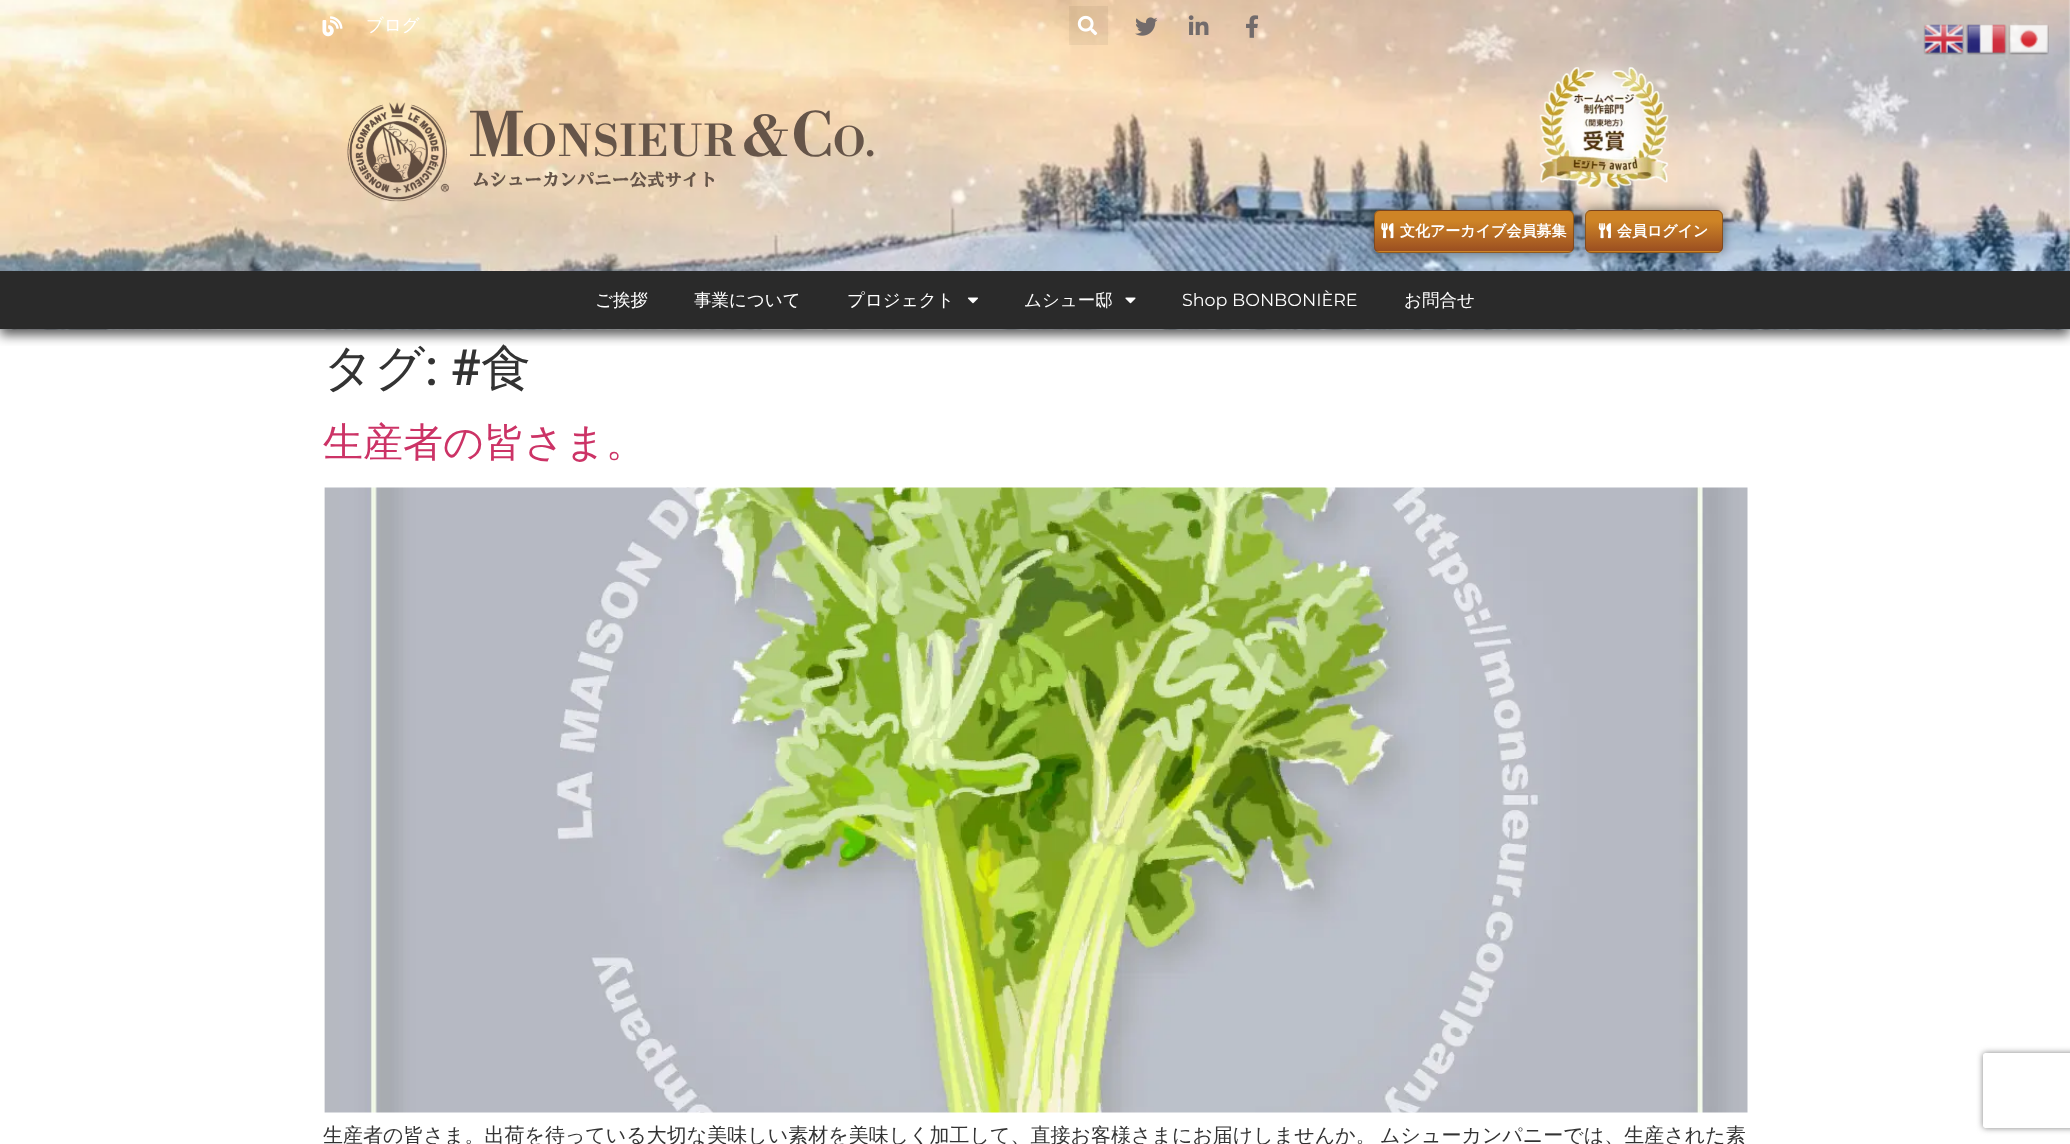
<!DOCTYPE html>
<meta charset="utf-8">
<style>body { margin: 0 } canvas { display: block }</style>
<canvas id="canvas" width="2070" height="1144"></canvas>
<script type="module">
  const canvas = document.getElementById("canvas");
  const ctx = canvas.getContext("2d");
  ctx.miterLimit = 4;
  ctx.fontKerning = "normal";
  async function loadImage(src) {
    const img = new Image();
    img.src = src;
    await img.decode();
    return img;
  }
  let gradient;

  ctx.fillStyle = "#ffffff";
  ctx.fillRect(0, 0, 2070, 1144);
  ctx.save();
  ctx.beginPath();
  ctx.rect(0, 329, 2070, 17);
  ctx.clip();
  ctx.fillStyle = "rgba(0, 0, 0, 0.65)";
  ctx.filter = "blur(6px)";
  ctx.beginPath();
  ctx.rect(0, 6, 2070, 329);
  ctx.fill();
  ctx.filter = "none";
  ctx.restore();
  ctx.drawImage(await loadImage("img1.png"), 0, 0, 2070, 330);
  ctx.drawImage(await loadImage("img2.png"), 322, 16, 21, 21);
  ctx.font = "500 17.5px WenQuanYi Zen Hei";
  ctx.fillText("ブログ", 366, 31);
  ctx.fillStyle = "rgba(0, 0, 0, 0.05)";
  ctx.fillRect(1069, 6, 39, 39);
  ctx.drawImage(await loadImage("img3.png"), 1077, 15, 21, 21);
  ctx.drawImage(await loadImage("img4.png"), 1135, 17, 23, 19);
  ctx.drawImage(await loadImage("img5.png"), 1188, 15, 21, 20);
  ctx.drawImage(await loadImage("img6.png"), 1246, 15, 13, 23);
  ctx.drawImage(await loadImage("img7.png"), 347, 102, 102, 100);
  ctx.letterSpacing = "1.75px";
  ctx.font = "600 43px Libre Bodoni";
  ctx.fillStyle = "#665549";
  ctx.fillText("ONSIEUR", 522, 156);
  ctx.letterSpacing = "-3px";
  ctx.font = "600 60px Libre Bodoni";
  ctx.fillText("M", 469, 156);
  ctx.letterSpacing = "-4px";
  ctx.font = "600 55px Libre Bodoni";
  ctx.fillText("&", 743, 156);
  ctx.letterSpacing = "-1px";
  ctx.font = "600 60px Libre Bodoni";
  ctx.fillText("C", 791, 156);
  ctx.letterSpacing = "0px";
  ctx.font = "600 40px Libre Bodoni";
  ctx.fillText("O.", 833, 156);
  ctx.font = "bold 17.5px BIZ UDMincho";
  ctx.fillText("ムシューカンパニー公式サイト", 472, 186);
  ctx.drawImage(await loadImage("img8.png"), 1537, 58, 132, 146);
  ctx.fillStyle = "rgba(0, 0, 0, 0.5)";
  ctx.filter = "blur(6px)";
  ctx.beginPath();
  ctx.roundRect(1374, 210, 200, 43, 6);
  ctx.fill();
  ctx.filter = "none";
  ctx.save();
  ctx.beginPath();
  ctx.roundRect(1374, 210, 200, 43, 6);
  ctx.clip();
  gradient = ctx.createLinearGradient(1474, 171, 1474, 211);
  gradient.addColorStop(0.25, "#ce8426");
  gradient.addColorStop(1, "#9b4f21");
  ctx.fillStyle = gradient;
  ctx.fillRect(1374, 210, 200, 1);
  gradient = ctx.createLinearGradient(1474, 211, 1474, 251);
  gradient.addColorStop(0.25, "#ce8426");
  gradient.addColorStop(1, "#9b4f21");
  ctx.fillStyle = gradient;
  ctx.fillRect(1374, 211, 200, 40);
  gradient = ctx.createLinearGradient(1474, 251, 1474, 291);
  gradient.addColorStop(0.25, "#ce8426");
  gradient.addColorStop(1, "#9b4f21");
  ctx.fillStyle = gradient;
  ctx.fillRect(1374, 251, 200, 2);
  ctx.restore();
  ctx.beginPath();
  ctx.roundRect(1374.5, 210.5, 199, 42, 5.5);
  ctx.strokeStyle = "rgba(99, 59, 28, 0.57)";
  ctx.stroke();
  ctx.drawImage(await loadImage("img9.png"), 1381, 223, 13, 16);
  ctx.font = "bold 15px WenQuanYi Zen Hei";
  ctx.fillStyle = "#ffffff";
  ctx.fillText("文化アーカイブ会員募集", 1400, 236);
  ctx.fillStyle = "rgba(0, 0, 0, 0.5)";
  ctx.filter = "blur(6px)";
  ctx.beginPath();
  ctx.roundRect(1585, 210, 138, 43, 6);
  ctx.fill();
  ctx.filter = "none";
  ctx.save();
  ctx.beginPath();
  ctx.roundRect(1585, 210, 138, 43, 6);
  ctx.clip();
  gradient = ctx.createLinearGradient(1654, 171, 1654, 211);
  gradient.addColorStop(0.25, "#ce8426");
  gradient.addColorStop(1, "#9b4f21");
  ctx.fillStyle = gradient;
  ctx.fillRect(1585, 210, 138, 1);
  gradient = ctx.createLinearGradient(1654, 211, 1654, 251);
  gradient.addColorStop(0.25, "#ce8426");
  gradient.addColorStop(1, "#9b4f21");
  ctx.fillStyle = gradient;
  ctx.fillRect(1585, 211, 138, 40);
  gradient = ctx.createLinearGradient(1654, 251, 1654, 291);
  gradient.addColorStop(0.25, "#ce8426");
  gradient.addColorStop(1, "#9b4f21");
  ctx.fillStyle = gradient;
  ctx.fillRect(1585, 251, 138, 2);
  ctx.restore();
  ctx.beginPath();
  ctx.roundRect(1585.5, 210.5, 137, 42, 5.5);
  ctx.stroke();
  ctx.drawImage(await loadImage("img10.png"), 1598, 223, 13, 16);
  ctx.fillStyle = "#ffffff";
  ctx.fillText("会員ログイン", 1617, 236);
  ctx.fillStyle = "#2a2a2a";
  ctx.fillRect(0, 271, 2070, 58);
  ctx.font = "500 17.5px WenQuanYi Zen Hei";
  ctx.fillStyle = "#ffffff";
  ctx.fillText("ご挨拶", 595, 306);
  ctx.fillText("事業について", 694, 306);
  ctx.fillText("プロジェクト", 847, 306);
  ctx.drawImage(await loadImage("img11.png"), 967, 297, 11, 7);
  ctx.fillText("ムシュー邸", 1024, 306);
  ctx.drawImage(await loadImage("img12.png"), 1125, 297, 11, 7);
  ctx.font = "17.5px Montserrat";
  ctx.fillText("Shop BONBONIÈRE", 1182, 306);
  ctx.font = "500 17.5px WenQuanYi Zen Hei";
  ctx.fillText("お問合せ", 1404, 306);
  ctx.drawImage(await loadImage("img13.png"), 1923, 24, 41, 31);
  ctx.drawImage(await loadImage("img14.png"), 1966, 24, 41, 31);
  ctx.drawImage(await loadImage("img15.png"), 2008, 24, 41, 31);
  ctx.font = "500 50px WenQuanYi Zen Hei";
  ctx.fillStyle = "#333333";
  ctx.fillText("タグ", 323, 385);
  ctx.font = "500 50px Roboto";
  ctx.fillText(": #", 425, 385);
  ctx.font = "500 50px WenQuanYi Zen Hei";
  ctx.fillText("食", 481, 385);
  ctx.font = "500 40px WenQuanYi Zen Hei";
  ctx.fillStyle = "#cc3366";
  ctx.fillText("生産者の皆さま。", 323, 456);
  ctx.drawImage(await loadImage("img16.png"), 324, 487, 1424, 626);
  ctx.font = "500 20px WenQuanYi Zen Hei";
  ctx.fillStyle = "#333333";
  ctx.fillText("生産者の皆さま。出荷を待っている大切な美味しい素材を美味しく加工して、直接お客様さまにお届けしませんか。", 323, 1142);
  ctx.fillText("ムシューカンパニーでは、生産された素", 1380, 1142);
  ctx.save();
  ctx.beginPath();
  ctx.moveTo(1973, 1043);
  ctx.lineTo(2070, 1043);
  ctx.lineTo(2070, 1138);
  ctx.lineTo(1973, 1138);
  ctx.closePath();
  ctx.moveTo(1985.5, 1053);
  ctx.lineTo(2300.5, 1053);
  ctx.bezierCurveTo(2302, 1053, 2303, 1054, 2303, 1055.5);
  ctx.lineTo(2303, 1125.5);
  ctx.bezierCurveTo(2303, 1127, 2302, 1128, 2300.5, 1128);
  ctx.lineTo(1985.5, 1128);
  ctx.bezierCurveTo(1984, 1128, 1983, 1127, 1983, 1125.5);
  ctx.lineTo(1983, 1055.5);
  ctx.bezierCurveTo(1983, 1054, 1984, 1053, 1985.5, 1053);
  ctx.closePath();
  ctx.clip("evenodd");
  ctx.fillStyle = "#808080";
  ctx.filter = "blur(3px)";
  ctx.beginPath();
  ctx.roundRect(1983, 1053, 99, 75, 2.5);
  ctx.fill();
  ctx.filter = "none";
  ctx.restore();
</script>
